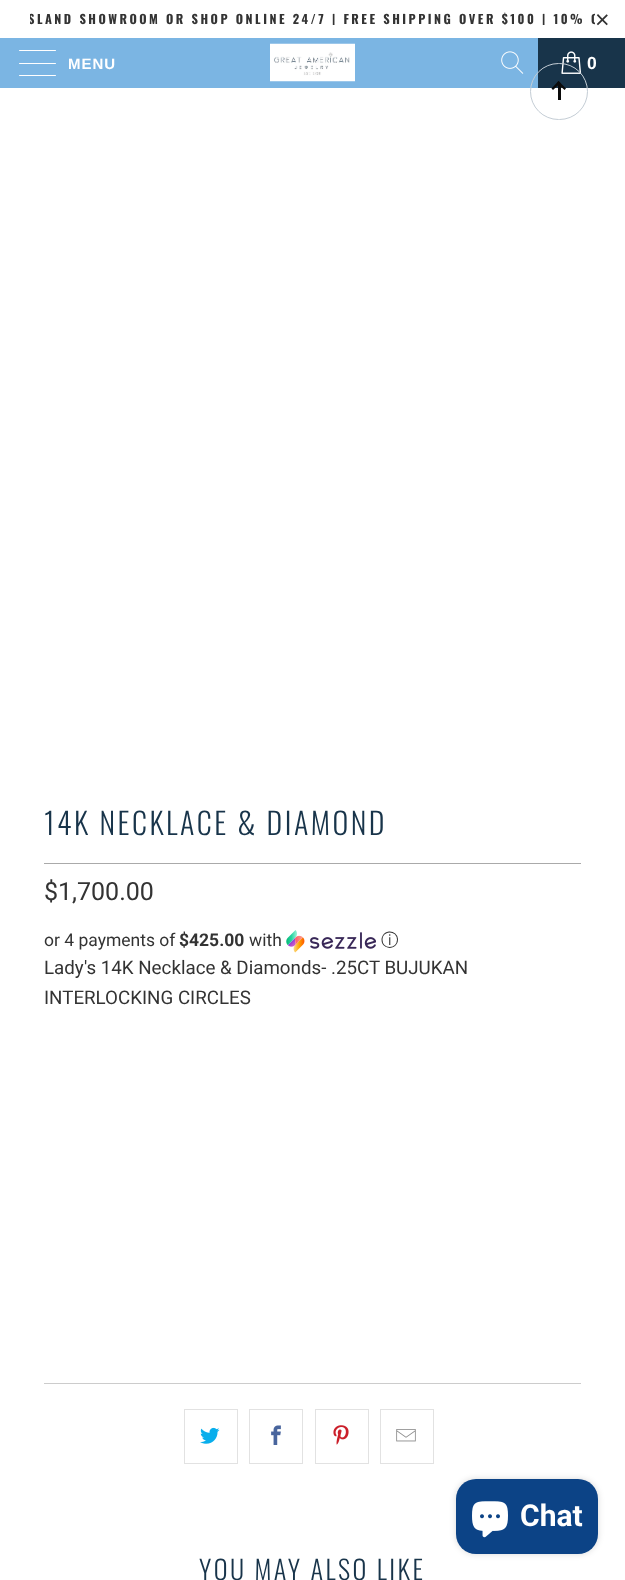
<!DOCTYPE html>
<meta charset="utf-8">
<style>body { margin: 0 } canvas { display: block }</style>
<canvas id="canvas" width="625" height="1580"></canvas>
<script type="module">
  const canvas = document.getElementById("canvas");
  const ctx = canvas.getContext("2d");
  ctx.miterLimit = 4;
  ctx.fontKerning = "normal";
  async function loadImage(src) {
    const img = new Image();
    img.src = src;
    await img.decode();
    return img;
  }

  ctx.fillStyle = "#ffffff";
  ctx.fillRect(0, 0, 625, 1580);
  ctx.save();
  ctx.beginPath();
  ctx.rect(30, 11, 565, 14);
  ctx.clip();
  ctx.letterSpacing = "2.5px";
  ctx.font = "bold 12.5px Oswald";
  ctx.fillStyle = "#333333";
  ctx.fillText("SLAND SHOWROOM OR SHOP ONLINE 24/7 | FREE SHIPPING OVER $100 | 10% O", 28, 24);
  ctx.restore();
  ctx.letterSpacing = "2.5px";
  ctx.font = "25px Liberation Sans";
  ctx.fillStyle = "#333333";
  ctx.fillText("×", 595, 28);
  ctx.fillStyle = "#7bb5e3";
  ctx.fillRect(0, 38, 538, 50);
  ctx.fillStyle = "#ffffff";
  ctx.beginPath();
  ctx.roundRect(19, 50, 37, 1, 0.5);
  ctx.fill();
  ctx.beginPath();
  ctx.roundRect(19, 63, 37, 1, 0.5);
  ctx.fill();
  ctx.beginPath();
  ctx.roundRect(19, 75, 37, 1, 0.5);
  ctx.fill();
  ctx.letterSpacing = "1px";
  ctx.font = "bold 15px Liberation Sans";
  ctx.fillText("MENU", 68, 69);
  ctx.drawImage(await loadImage("img1.png"), 270, 43, 85, 39);
  ctx.drawImage(await loadImage("img2.png"), 501, 51, 23, 23);
  ctx.fillStyle = "#18344a";
  ctx.fillRect(538, 38, 87, 50);
  ctx.drawImage(await loadImage("img3.png"), 561, 51, 21, 23);
  ctx.letterSpacing = "2.5px";
  ctx.font = "bold 17.5px Liberation Sans";
  ctx.fillStyle = "#ffffff";
  ctx.fillText("0", 587, 69);
  ctx.beginPath();
  ctx.roundRect(530.5, 63.5, 57, 56, 28);
  ctx.strokeStyle = "#c4cdd5";
  ctx.stroke();
  ctx.fillStyle = "#0a0a0a";
  ctx.beginPath();
  ctx.moveTo(551.5, 88.5);
  ctx.lineTo(558.5, 81);
  ctx.lineTo(560.5, 83);
  ctx.lineTo(553, 90);
  ctx.closePath();
  ctx.fill();
  ctx.beginPath();
  ctx.moveTo(557, 83);
  ctx.lineTo(558.5, 81);
  ctx.lineTo(566, 88.5);
  ctx.lineTo(564.5, 90);
  ctx.closePath();
  ctx.fill();
  ctx.fillRect(558, 83, 3, 17);
  ctx.font = "300 30px Oswald";
  ctx.fillStyle = "#18344a";
  ctx.fillText("14K NECKLACE & DIAMOND", 44, 835);
  ctx.fillStyle = "#aaaaaa";
  ctx.fillRect(44, 863, 537, 1);
  ctx.letterSpacing = "0px";
  ctx.font = "25px Roboto";
  ctx.fillStyle = "#333333";
  ctx.fillText("$1,700.00", 44, 900);
  ctx.font = "17.5px Roboto";
  ctx.fillText("or 4 payments of", 44, 946);
  ctx.font = "bold 17.5px Roboto";
  ctx.fillText("$425.00", 179, 946);
  ctx.font = "17.5px Roboto";
  ctx.fillText("with", 249, 946);
  ctx.drawImage(await loadImage("img4.png"), 286, 930, 90, 23);
  ctx.font = "500 17.5px WenQuanYi Zen Hei";
  ctx.fillText("ⓘ", 381, 946);
  ctx.font = "18.75px Roboto";
  ctx.fillText("Lady's 14K Necklace & Diamonds- .25CT BUJUKAN", 44, 974);
  ctx.fillText("INTERLOCKING CIRCLES", 44, 1004);
  ctx.fillStyle = "#cccccc";
  ctx.fillRect(44, 1383, 537, 1);
  ctx.strokeStyle = "#e2e2e2";
  ctx.strokeRect(184.5, 1409.5, 53, 54);
  ctx.drawImage(await loadImage("img5.png"), 200, 1427, 20, 17);
  ctx.strokeRect(249.5, 1409.5, 53, 54);
  ctx.drawImage(await loadImage("img6.png"), 271, 1425, 10, 20);
  ctx.strokeRect(315.5, 1409.5, 53, 54);
  ctx.drawImage(await loadImage("img7.png"), 333, 1425, 16, 20);
  ctx.strokeRect(380.5, 1409.5, 53, 54);
  ctx.drawImage(await loadImage("img8.png"), 396, 1429, 20, 13);
  ctx.fillStyle = "rgba(0, 0, 0, 0.15)";
  ctx.filter = "blur(3px)";
  ctx.beginPath();
  ctx.roundRect(456, 1479, 142, 75, 20);
  ctx.fill();
  ctx.filter = "none";
  ctx.fillStyle = "#0c4386";
  ctx.beginPath();
  ctx.roundRect(456, 1479, 142, 75, 20);
  ctx.fill();
  ctx.drawImage(await loadImage("img9.png"), 472, 1501, 36, 37);
  ctx.font = "bold 30px Roboto";
  ctx.fillStyle = "#ffffff";
  ctx.fillText("Chat", 520, 1526);
  ctx.letterSpacing = "2.5px";
  ctx.font = "300 26.25px Oswald";
  ctx.fillStyle = "#18344a";
  ctx.fillText("YOU MAY ALSO LIKE", 199, 1580);
</script>
